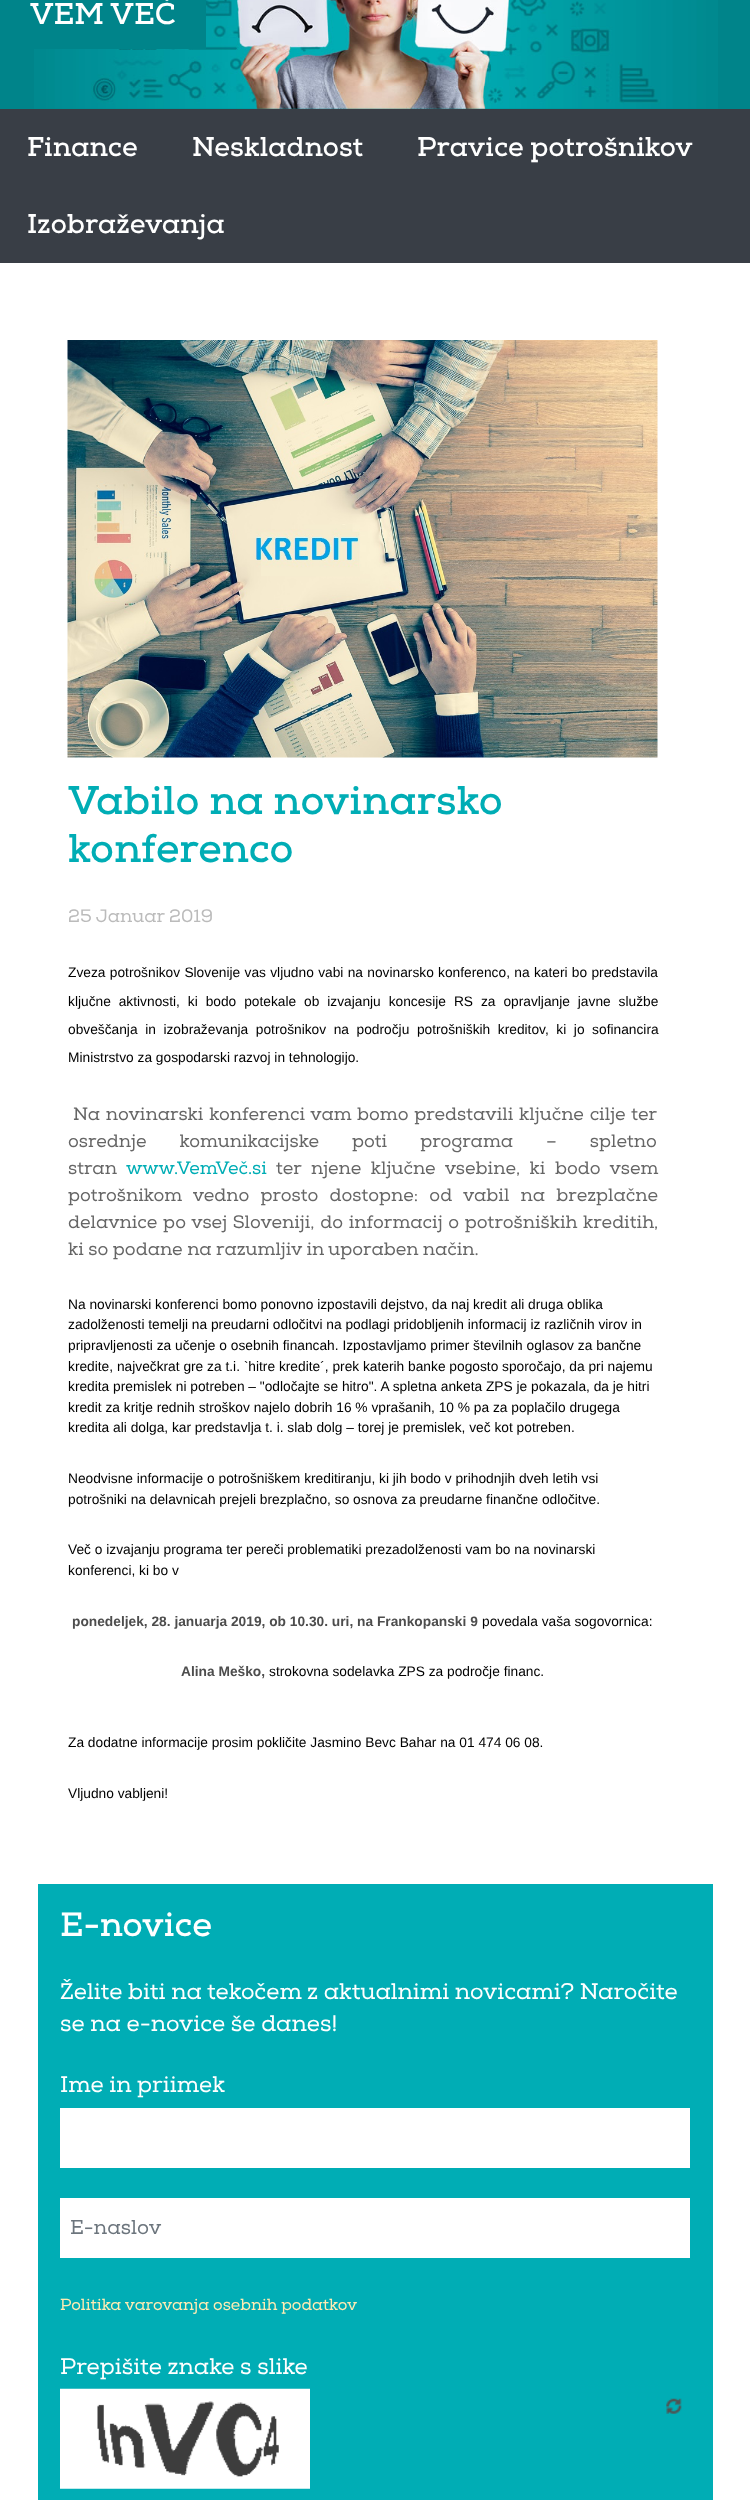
<!DOCTYPE html>
<meta charset="utf-8">
<style>body { margin: 0 } canvas { display: block }</style>
<canvas id="canvas" width="750" height="2500"></canvas>
<script type="module">
  const canvas = document.getElementById("canvas");
  const ctx = canvas.getContext("2d");
  ctx.miterLimit = 4;
  ctx.fontKerning = "normal";
  async function loadImage(src) {
    const img = new Image();
    img.src = src;
    await img.decode();
    return img;
  }

  ctx.fillStyle = "#ffffff";
  ctx.fillRect(0, 0, 750, 2500);
  ctx.fillStyle = "#00848a";
  ctx.fillRect(0, 0, 750, 109);
  ctx.drawImage(await loadImage("img1.png"), 34, 0, 684, 109);
  ctx.fillRect(34, 0, 172, 49);
  ctx.font = "bold 30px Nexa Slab";
  ctx.fillStyle = "#ffffff";
  ctx.fillText("VEM VEČ", 30, 24);
  ctx.fillStyle = "#393e46";
  ctx.fillRect(0, 109, 750, 154);
  ctx.font = "bold 27px Nexa Slab";
  ctx.fillStyle = "#ffffff";
  ctx.fillText("Finance", 27, 156);
  ctx.fillText("Neskladnost", 192, 156);
  ctx.fillText("Pravice potrošnikov", 417, 156);
  ctx.fillText("Izobraževanja", 27, 233);
  ctx.drawImage(await loadImage("img2.png"), 67, 340, 591, 418);
  ctx.font = "bold 40px Nexa Slab";
  ctx.fillStyle = "#00adb5";
  ctx.fillText("Vabilo na novinarsko", 68, 814);
  ctx.fillText("konferenco", 68, 862);
  ctx.font = "18px Nexa Slab";
  ctx.fillStyle = "#bbbbbb";
  ctx.fillText("25 Januar 2019", 68, 922);
  ctx.wordSpacing = "0.5px";
  ctx.font = "13.75px Liberation Sans";
  ctx.fillStyle = "#000000";
  ctx.fillText("Zveza potrošnikov Slovenije vas vljudno vabi na novinarsko konferenco, na kateri bo predstavila", 68, 977);
  ctx.wordSpacing = "4.1px";
  ctx.fillText("ključne aktivnosti, ki bodo potekale ob izvajanju koncesije RS za opravljanje javne službe", 68, 1006);
  ctx.wordSpacing = "3.75px";
  ctx.fillText("obveščanja in izobraževanja potrošnikov na področju potrošniških kreditov, ki jo sofinancira", 68, 1034);
  ctx.wordSpacing = "0px";
  ctx.fillText("Ministrstvo za gospodarski razvoj in tehnologijo.", 68, 1062);
  ctx.wordSpacing = "1.25px";
  ctx.font = "18px Nexa Slab";
  ctx.fillStyle = "#666666";
  ctx.fillText("Na novinarski konferenci vam bomo predstavili ključne cilje ter", 73, 1120);
  ctx.wordSpacing = "28.5px";
  ctx.fillText("osrednje komunikacijske poti programa – spletno", 68, 1147);
  ctx.wordSpacing = "0px";
  ctx.fillText("stran", 68, 1174);
  ctx.fillStyle = "#00adb5";
  ctx.fillText("www.VemVeč.si", 126, 1174);
  ctx.wordSpacing = "5px";
  ctx.fillStyle = "#666666";
  ctx.fillText("ter njene ključne vsebine, ki bodo vsem", 276, 1174);
  ctx.wordSpacing = "6.75px";
  ctx.fillText("potrošnikom vedno prosto dostopne: od vabil na brezplačne", 68, 1201);
  ctx.wordSpacing = "1.25px";
  ctx.fillText("delavnice po vsej Sloveniji, do informacij o potrošniških kreditih,", 68, 1228);
  ctx.wordSpacing = "0px";
  ctx.fillText("ki so podane na razumljiv in uporaben način.", 68, 1255);
  ctx.font = "13.75px Liberation Sans";
  ctx.fillStyle = "#000000";
  ctx.fillText("Na novinarski konferenci bomo ponovno izpostavili dejstvo, da naj kredit ali druga oblika", 68, 1309);
  ctx.fillText("zadolženosti temelji na preudarni odločitvi na podlagi pridobljenih informacij iz različnih virov in", 68, 1329);
  ctx.fillText("pripravljenosti za učenje o osebnih financah. Izpostavljamo primer številnih oglasov za bančne", 68, 1350);
  ctx.fillText("kredite, največkrat gre za t.i. `hitre kredite´, prek katerih banke pogosto sporočajo, da pri najemu", 68, 1371);
  ctx.fillText("kredita premislek ni potreben – \"odločajte se hitro\". A spletna anketa ZPS je pokazala, da je hitri", 68, 1391);
  ctx.fillText("kredit za kritje rednih stroškov najelo dobrih 16 % vprašanih, 10 % pa za poplačilo drugega", 68, 1412);
  ctx.fillText("kredita ali dolga, kar predstavlja t. i. slab dolg – torej je premislek, več kot potreben.", 68, 1432);
  ctx.fillText("Neodvisne informacije o potrošniškem kreditiranju, ki jih bodo v prihodnjih dveh letih vsi", 68, 1483);
  ctx.fillText("potrošniki na delavnicah prejeli brezplačno, so osnova za preudarne finančne odločitve.", 68, 1504);
  ctx.fillText("Več o izvajanju programa ter pereči problematiki prezadolženosti vam bo na novinarski", 68, 1554);
  ctx.fillText("konferenci, ki bo v", 68, 1575);
  ctx.font = "bold 13.75px Liberation Sans";
  ctx.fillStyle = "#4d4d4d";
  ctx.fillText("ponedeljek, 28. januarja 2019, ob 10.30. uri, na Frankopanski 9", 72, 1626);
  ctx.font = "13.75px Liberation Sans";
  ctx.fillStyle = "#000000";
  ctx.fillText("povedala vaša sogovornica:", 482, 1626);
  ctx.font = "bold 13.75px Liberation Sans";
  ctx.fillStyle = "#4d4d4d";
  ctx.fillText("Alina Meško,", 181, 1676);
  ctx.font = "13.75px Liberation Sans";
  ctx.fillStyle = "#000000";
  ctx.fillText("strokovna sodelavka ZPS za področje financ.", 269, 1676);
  ctx.fillText("Za dodatne informacije prosim pokličite Jasmino Bevc Bahar na 01 474 06 08.", 68, 1747);
  ctx.fillText("Vljudno vabljeni!", 68, 1798);
  ctx.fillStyle = "#00adb5";
  ctx.fillRect(38, 1884, 675, 616);
  ctx.font = "bold 33.75px Nexa Slab";
  ctx.fillStyle = "#ffffff";
  ctx.fillText("E-novice", 60, 1936);
  ctx.font = "22.5px Nexa Slab";
  ctx.fillText("Želite biti na tekočem z aktualnimi novicami? Naročite", 60, 1999);
  ctx.fillText("se na e-novice še danes!", 60, 2031);
  ctx.fillText("Ime in priimek", 60, 2092);
  ctx.fillRect(60, 2108, 630, 60);
  ctx.fillRect(60, 2198, 630, 60);
  ctx.font = "20px Nexa Slab";
  ctx.fillStyle = "#6c757d";
  ctx.fillText("E-naslov", 70, 2234);
  ctx.font = "16px Nexa Slab";
  ctx.fillStyle = "#ffecb3";
  ctx.fillText("Politika varovanja osebnih podatkov", 60, 2310);
  ctx.font = "22.5px Nexa Slab";
  ctx.fillStyle = "#ffffff";
  ctx.fillText("Prepišite znake s slike", 60, 2374);
  ctx.drawImage(await loadImage("img3.png"), 60, 2388, 250, 101);
  ctx.drawImage(await loadImage("img4.png"), 666, 2398, 16, 16);
</script>
